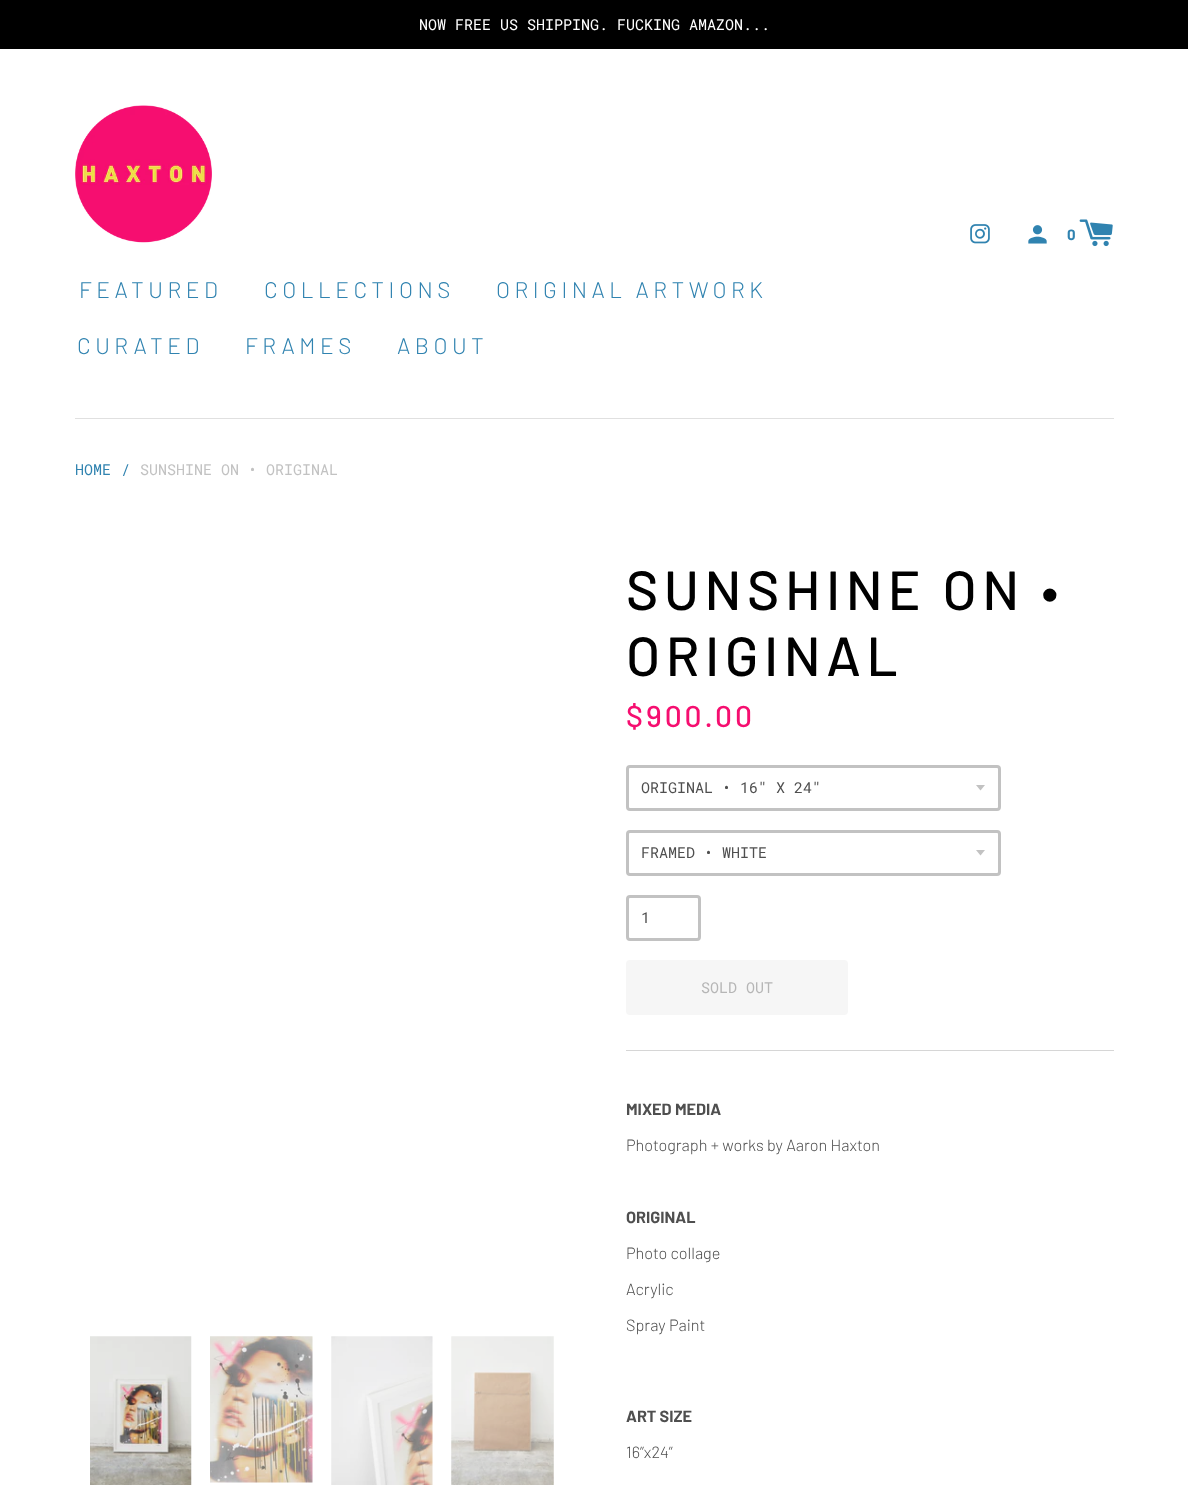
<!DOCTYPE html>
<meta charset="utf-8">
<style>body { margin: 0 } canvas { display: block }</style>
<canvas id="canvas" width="1188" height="1485"></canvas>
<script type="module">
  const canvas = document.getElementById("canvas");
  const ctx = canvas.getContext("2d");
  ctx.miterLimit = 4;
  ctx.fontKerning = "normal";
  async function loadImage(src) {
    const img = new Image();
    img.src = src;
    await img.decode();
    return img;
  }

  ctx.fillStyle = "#ffffff";
  ctx.fillRect(0, 0, 1188, 1485);
  ctx.fillStyle = "#000000";
  ctx.fillRect(0, 0, 1188, 49);
  ctx.font = "15px Roboto Mono";
  ctx.fillStyle = "#ffffff";
  ctx.fillText("NOW FREE US SHIPPING. FUCKING AMAZON...", 419, 30);
  ctx.fillStyle = "#e0e0e0";
  ctx.fillRect(75, 418, 1039, 1);
  ctx.drawImage(await loadImage("img1.png"), 970, 224, 20, 20);
  ctx.drawImage(await loadImage("img2.png"), 1028, 225, 19, 19);
  ctx.font = "bold 15px Barlow";
  ctx.fillStyle = "#3083b0";
  ctx.fillText("0", 1067, 240);
  ctx.drawImage(await loadImage("img3.png"), 1079, 219, 34, 28);
  ctx.drawImage(await loadImage("img4.png"), 75, 105, 137, 138);
  ctx.letterSpacing = "4.5px";
  ctx.font = "300 22.5px Barlow";
  ctx.fillText("FEATURED", 79, 298);
  ctx.fillText("COLLECTIONS", 264, 298);
  ctx.fillText("ORIGINAL ARTWORK", 496, 298);
  ctx.fillText("CURATED", 77, 354);
  ctx.fillText("FRAMES", 245, 354);
  ctx.fillText("ABOUT", 397, 354);
  ctx.letterSpacing = "0px";
  ctx.font = "15px Roboto Mono";
  ctx.fillText("HOME", 75, 475);
  ctx.fillText("/", 121, 475);
  ctx.fillStyle = "#c2c2c2";
  ctx.fillText("SUNSHINE ON • ORIGINAL", 140, 475);
  ctx.drawImage(await loadImage("img5.png"), 90, 1336, 102, 149);
  ctx.drawImage(await loadImage("img6.png"), 210, 1336, 103, 147);
  ctx.drawImage(await loadImage("img7.png"), 331, 1336, 102, 149);
  ctx.drawImage(await loadImage("img8.png"), 451, 1336, 103, 149);
  ctx.letterSpacing = "5.5px";
  ctx.font = "500 55px Barlow";
  ctx.fillStyle = "#000000";
  ctx.fillText("SUNSHINE ON •", 626, 610);
  ctx.fillText("ORIGINAL", 626, 676);
  ctx.letterSpacing = "3px";
  ctx.font = "500 30px Barlow";
  ctx.fillStyle = "#f60e70";
  ctx.fillText("$900.00", 626, 727);
  ctx.fillStyle = "#c2c2c2";
  ctx.beginPath();
  ctx.moveTo(976, 785);
  ctx.lineTo(980.5, 790.5);
  ctx.lineTo(985, 785);
  ctx.closePath();
  ctx.fill();
  ctx.beginPath();
  ctx.roundRect(627.5, 766.5, 372, 43, 2.5);
  ctx.strokeStyle = "#c2c2c2";
  ctx.lineWidth = 3;
  ctx.stroke();
  ctx.letterSpacing = "0px";
  ctx.font = "15px Roboto Mono";
  ctx.fillStyle = "#4f4f4f";
  ctx.fillText("ORIGINAL • 16\" X 24\"", 641, 793);
  ctx.fillStyle = "#c2c2c2";
  ctx.beginPath();
  ctx.moveTo(976, 850);
  ctx.lineTo(980.5, 855.5);
  ctx.lineTo(985, 850);
  ctx.closePath();
  ctx.fill();
  ctx.beginPath();
  ctx.roundRect(627.5, 831.5, 372, 43, 2.5);
  ctx.stroke();
  ctx.fillStyle = "#4f4f4f";
  ctx.fillText("FRAMED • WHITE", 641, 858);
  ctx.beginPath();
  ctx.roundRect(627.5, 896.5, 72, 43, 2.5);
  ctx.stroke();
  ctx.fillText("1", 641, 923);
  ctx.fillStyle = "#f6f6f6";
  ctx.beginPath();
  ctx.roundRect(626, 960, 222, 55, 4);
  ctx.fill();
  ctx.fillStyle = "#b6b6b6";
  ctx.fillText("SOLD OUT", 701, 993);
  ctx.fillStyle = "#d6d6d6";
  ctx.fillRect(626, 1050, 488, 1);
  ctx.font = "bold 16.25px Barlow";
  ctx.fillStyle = "#4f4f4f";
  ctx.fillText("MIXED MEDIA", 626, 1115);
  ctx.font = "300 16.25px Barlow";
  ctx.fillText("Photograph + works by Aaron Haxton", 626, 1151);
  ctx.font = "bold 16.25px Barlow";
  ctx.fillText("ORIGINAL", 626, 1223);
  ctx.font = "300 16.25px Barlow";
  ctx.fillText("Photo collage", 626, 1259);
  ctx.fillText("Acrylic", 626, 1295);
  ctx.fillText("Spray Paint", 626, 1331);
  ctx.font = "bold 16.25px Barlow";
  ctx.fillText("ART SIZE", 626, 1422);
  ctx.font = "300 16.25px Barlow";
  ctx.fillText("16”x24”", 626, 1458);
</script>
